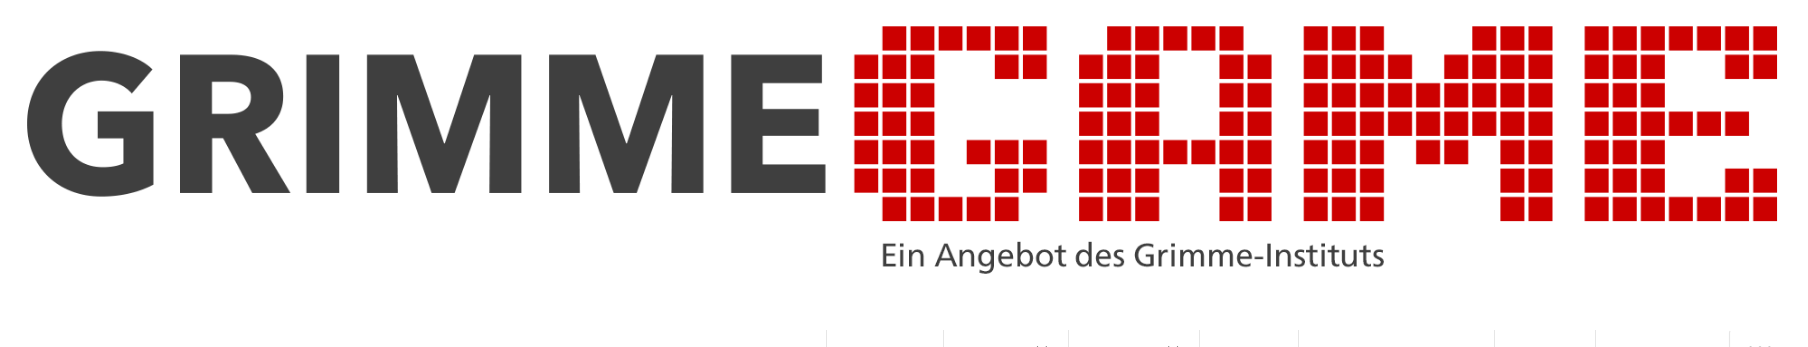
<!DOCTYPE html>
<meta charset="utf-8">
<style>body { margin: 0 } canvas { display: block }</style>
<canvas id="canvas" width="1808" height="347"></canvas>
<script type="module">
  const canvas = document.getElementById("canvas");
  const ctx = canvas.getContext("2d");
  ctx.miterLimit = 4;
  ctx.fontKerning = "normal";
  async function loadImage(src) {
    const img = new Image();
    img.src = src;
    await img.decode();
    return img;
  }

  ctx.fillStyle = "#ffffff";
  ctx.fillRect(0, 0, 1808, 347);
  ctx.drawImage(await loadImage("img1.png"), 27, 26, 1751, 248);
  ctx.fillStyle = "#e6e6e6";
  ctx.fillRect(826, 330, 1, 17);
  ctx.fillRect(943, 330, 1, 17);
  ctx.drawImage(await loadImage("img2.png"), 1036, 346, 11, 1);
  ctx.fillRect(1068, 330, 1, 17);
  ctx.drawImage(await loadImage("img3.png"), 1168, 346, 11, 1);
  ctx.fillRect(1199, 330, 1, 17);
  ctx.fillRect(1298, 330, 1, 17);
  ctx.fillRect(1494, 330, 1, 17);
  ctx.fillRect(1595, 330, 1, 17);
  ctx.beginPath();
  ctx.moveTo(1730, 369);
  ctx.lineTo(1729.5, 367.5);
  ctx.lineTo(1729.5, 332.5);
  ctx.lineTo(1730, 331);
  ctx.strokeStyle = "#e6e6e6";
  ctx.lineWidth = 1.2;
  ctx.stroke();
  ctx.drawImage(await loadImage("img4.png"), 1749, 346, 22, 1);
</script>
